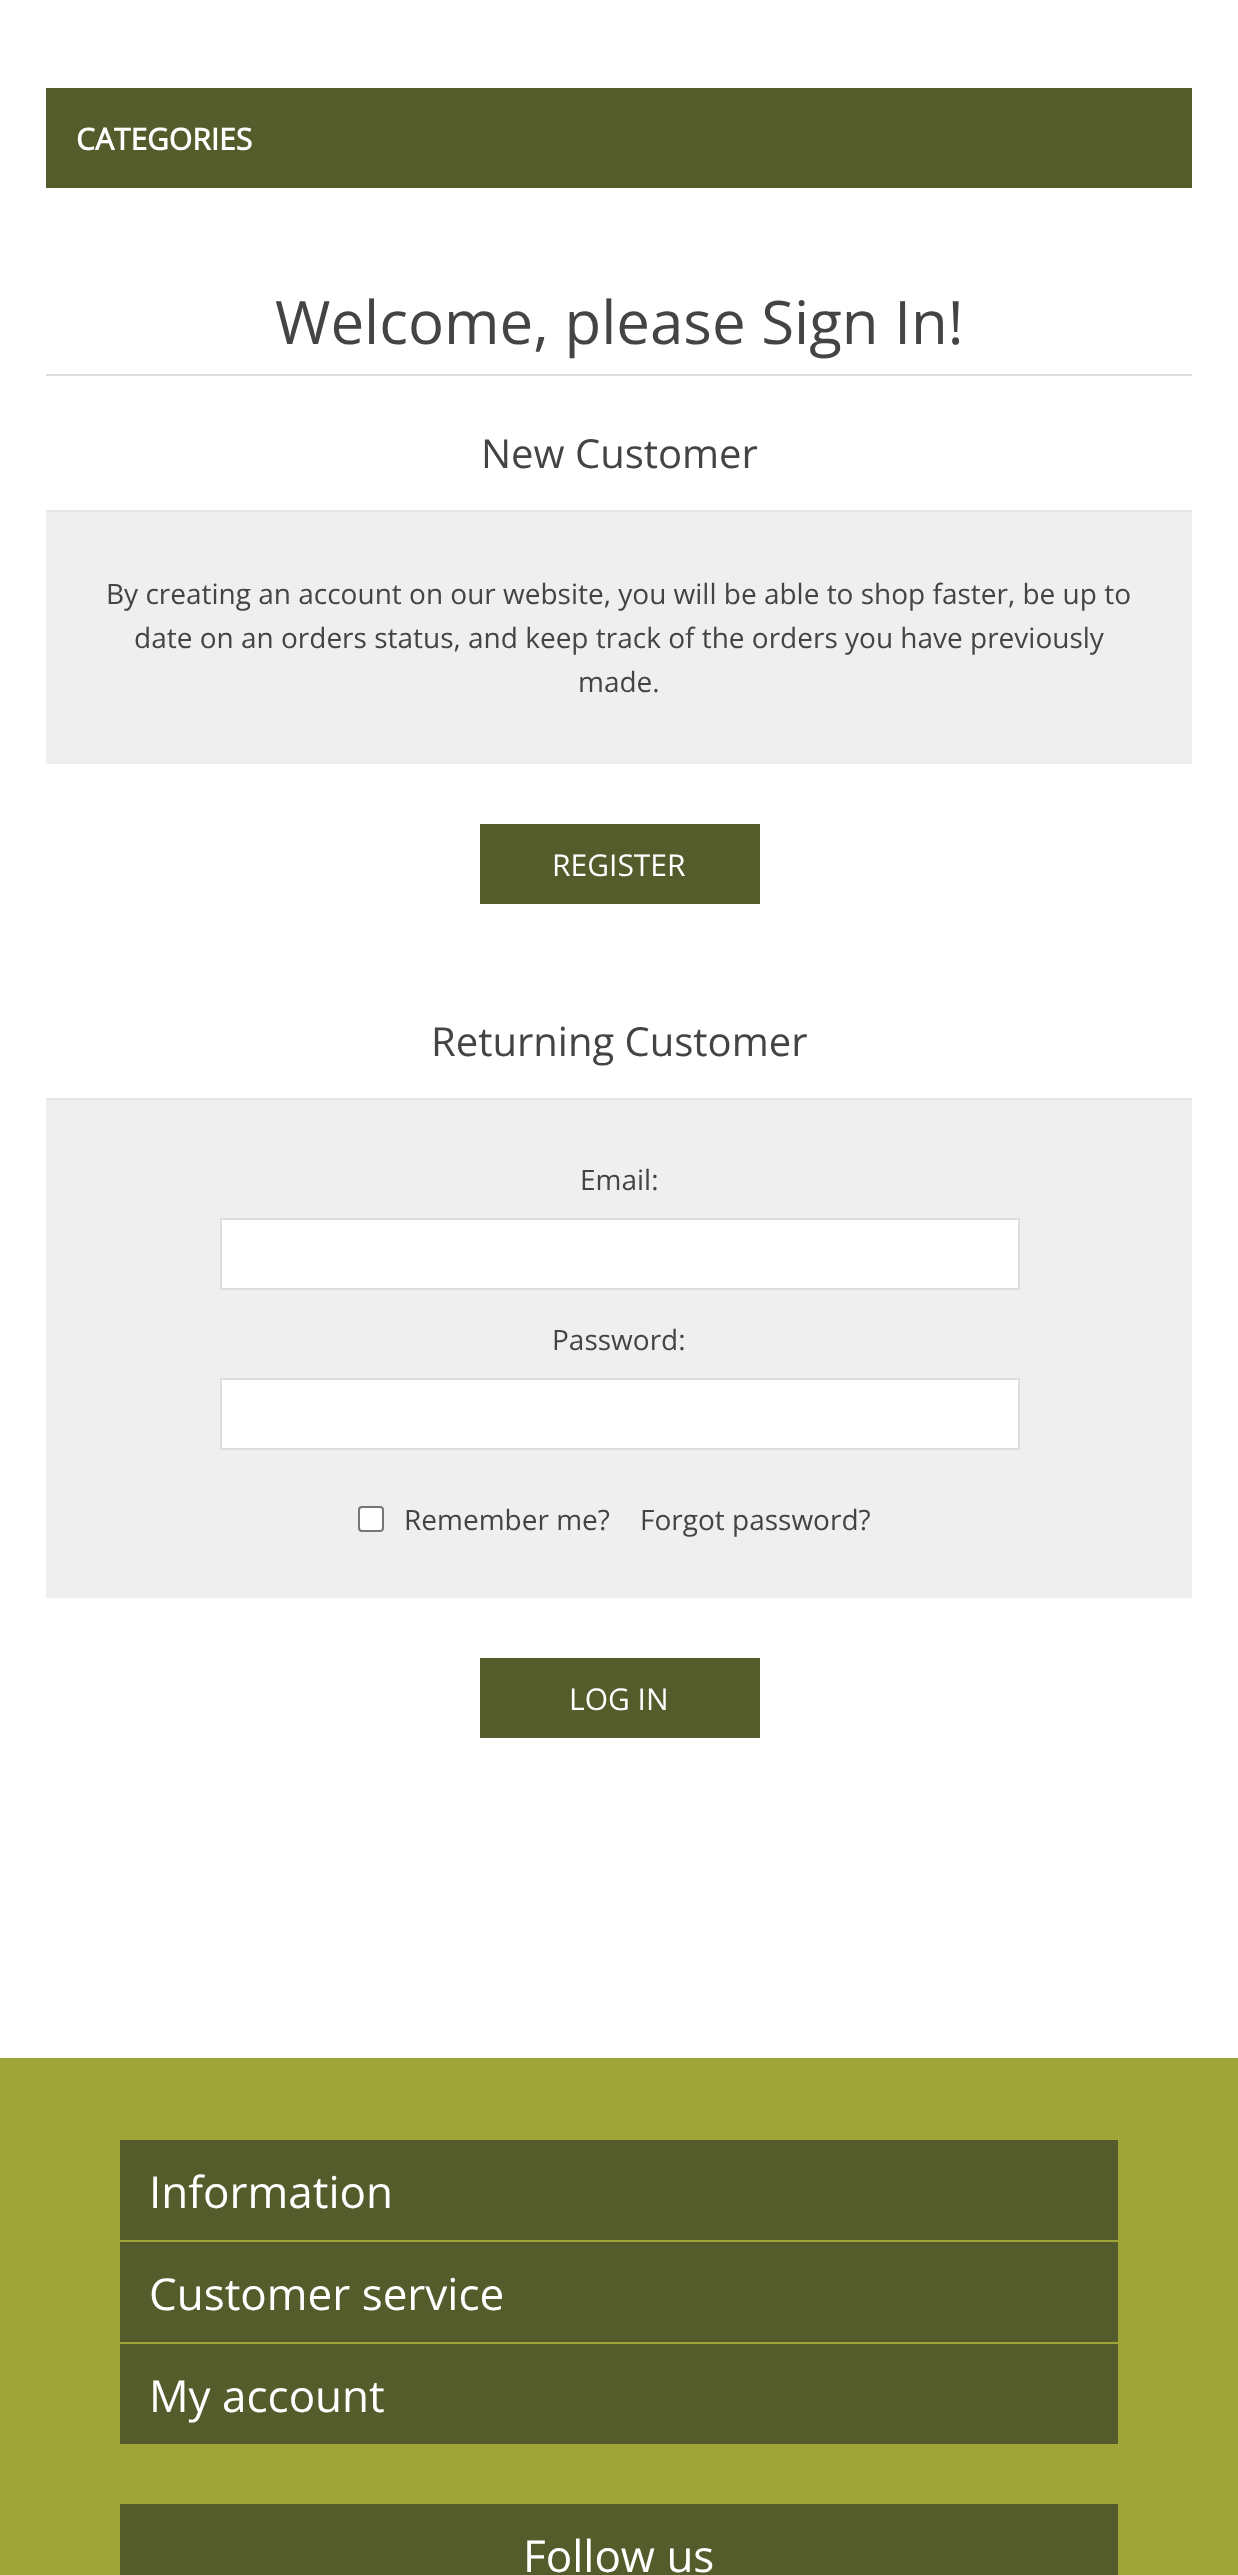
<!DOCTYPE html>
<meta charset="utf-8">
<style>body { margin: 0 } canvas { display: block }</style>
<canvas id="canvas" width="1238" height="2575"></canvas>
<script type="module">
  const canvas = document.getElementById("canvas");
  const ctx = canvas.getContext("2d");
  ctx.miterLimit = 4;
  ctx.fontKerning = "normal";

  ctx.fillStyle = "#ffffff";
  ctx.fillRect(0, 0, 1238, 2575);
  ctx.fillStyle = "#555c2c";
  ctx.fillRect(46, 88, 1146, 100);
  ctx.font = "bold 30px Open Sans";
  ctx.fillStyle = "#ffffff";
  ctx.fillText("CATEGORIES", 76, 150);
  ctx.fillStyle = "#dddddd";
  ctx.fillRect(46, 374, 1146, 2);
  ctx.font = "60px Open Sans";
  ctx.fillStyle = "#444444";
  ctx.fillText("Welcome, please Sign In!", 275, 344);
  ctx.font = "40px Open Sans";
  ctx.fillText("New Customer", 481, 468);
  ctx.fillStyle = "#efefef";
  ctx.fillRect(46, 512, 1146, 252);
  ctx.fillStyle = "#e6e6e6";
  ctx.fillRect(46, 510, 1146, 2);
  ctx.font = "28px Open Sans";
  ctx.fillStyle = "#444444";
  ctx.fillText("By creating an account on our website, you will be able to shop faster, be up to", 106, 604);
  ctx.fillText("date on an orders status, and keep track of the orders you have previously", 134, 648);
  ctx.fillText("made.", 578, 692);
  ctx.fillStyle = "#555c2c";
  ctx.fillRect(480, 824, 280, 80);
  ctx.font = "30px Open Sans";
  ctx.fillStyle = "#ffffff";
  ctx.fillText("REGISTER", 552, 876);
  ctx.font = "40px Open Sans";
  ctx.fillStyle = "#444444";
  ctx.fillText("Returning Customer", 431, 1056);
  ctx.fillStyle = "#efefef";
  ctx.fillRect(46, 1100, 1146, 498);
  ctx.fillStyle = "#e6e6e6";
  ctx.fillRect(46, 1098, 1146, 2);
  ctx.font = "28px Open Sans";
  ctx.fillStyle = "#444444";
  ctx.fillText("Email:", 580, 1190);
  ctx.fillStyle = "#ffffff";
  ctx.beginPath();
  ctx.rect(221, 1219, 798, 70);
  ctx.fill();
  ctx.strokeStyle = "#dddddd";
  ctx.lineWidth = 2;
  ctx.stroke();
  ctx.fillStyle = "#444444";
  ctx.fillText("Password:", 552, 1350);
  ctx.fillStyle = "#ffffff";
  ctx.beginPath();
  ctx.rect(221, 1379, 798, 70);
  ctx.fill();
  ctx.stroke();
  ctx.beginPath();
  ctx.roundRect(359, 1507, 24, 24, 3);
  ctx.fill();
  ctx.strokeStyle = "#767676";
  ctx.stroke();
  ctx.fillStyle = "#444444";
  ctx.fillText("Remember me?", 404, 1530);
  ctx.fillText("Forgot password?", 640, 1530);
  ctx.fillStyle = "#555c2c";
  ctx.fillRect(480, 1658, 280, 80);
  ctx.font = "30px Open Sans";
  ctx.fillStyle = "#ffffff";
  ctx.fillText("LOG IN", 569, 1710);
  ctx.fillStyle = "#9fa537";
  ctx.fillRect(0, 2058, 1238, 517);
  ctx.fillStyle = "#555c2c";
  ctx.fillRect(120, 2140, 998, 100);
  ctx.font = "44px Open Sans";
  ctx.fillStyle = "#ffffff";
  ctx.fillText("Information", 149, 2208);
  ctx.fillStyle = "#555c2c";
  ctx.fillRect(120, 2242, 998, 100);
  ctx.fillStyle = "#ffffff";
  ctx.fillText("Customer service", 149, 2310);
  ctx.fillStyle = "#555c2c";
  ctx.fillRect(120, 2344, 998, 100);
  ctx.fillStyle = "#ffffff";
  ctx.fillText("My account", 149, 2412);
  ctx.fillStyle = "#555c2c";
  ctx.fillRect(120, 2504, 998, 71);
  ctx.fillStyle = "#ffffff";
  ctx.fillText("Follow us", 523, 2572);
</script>
